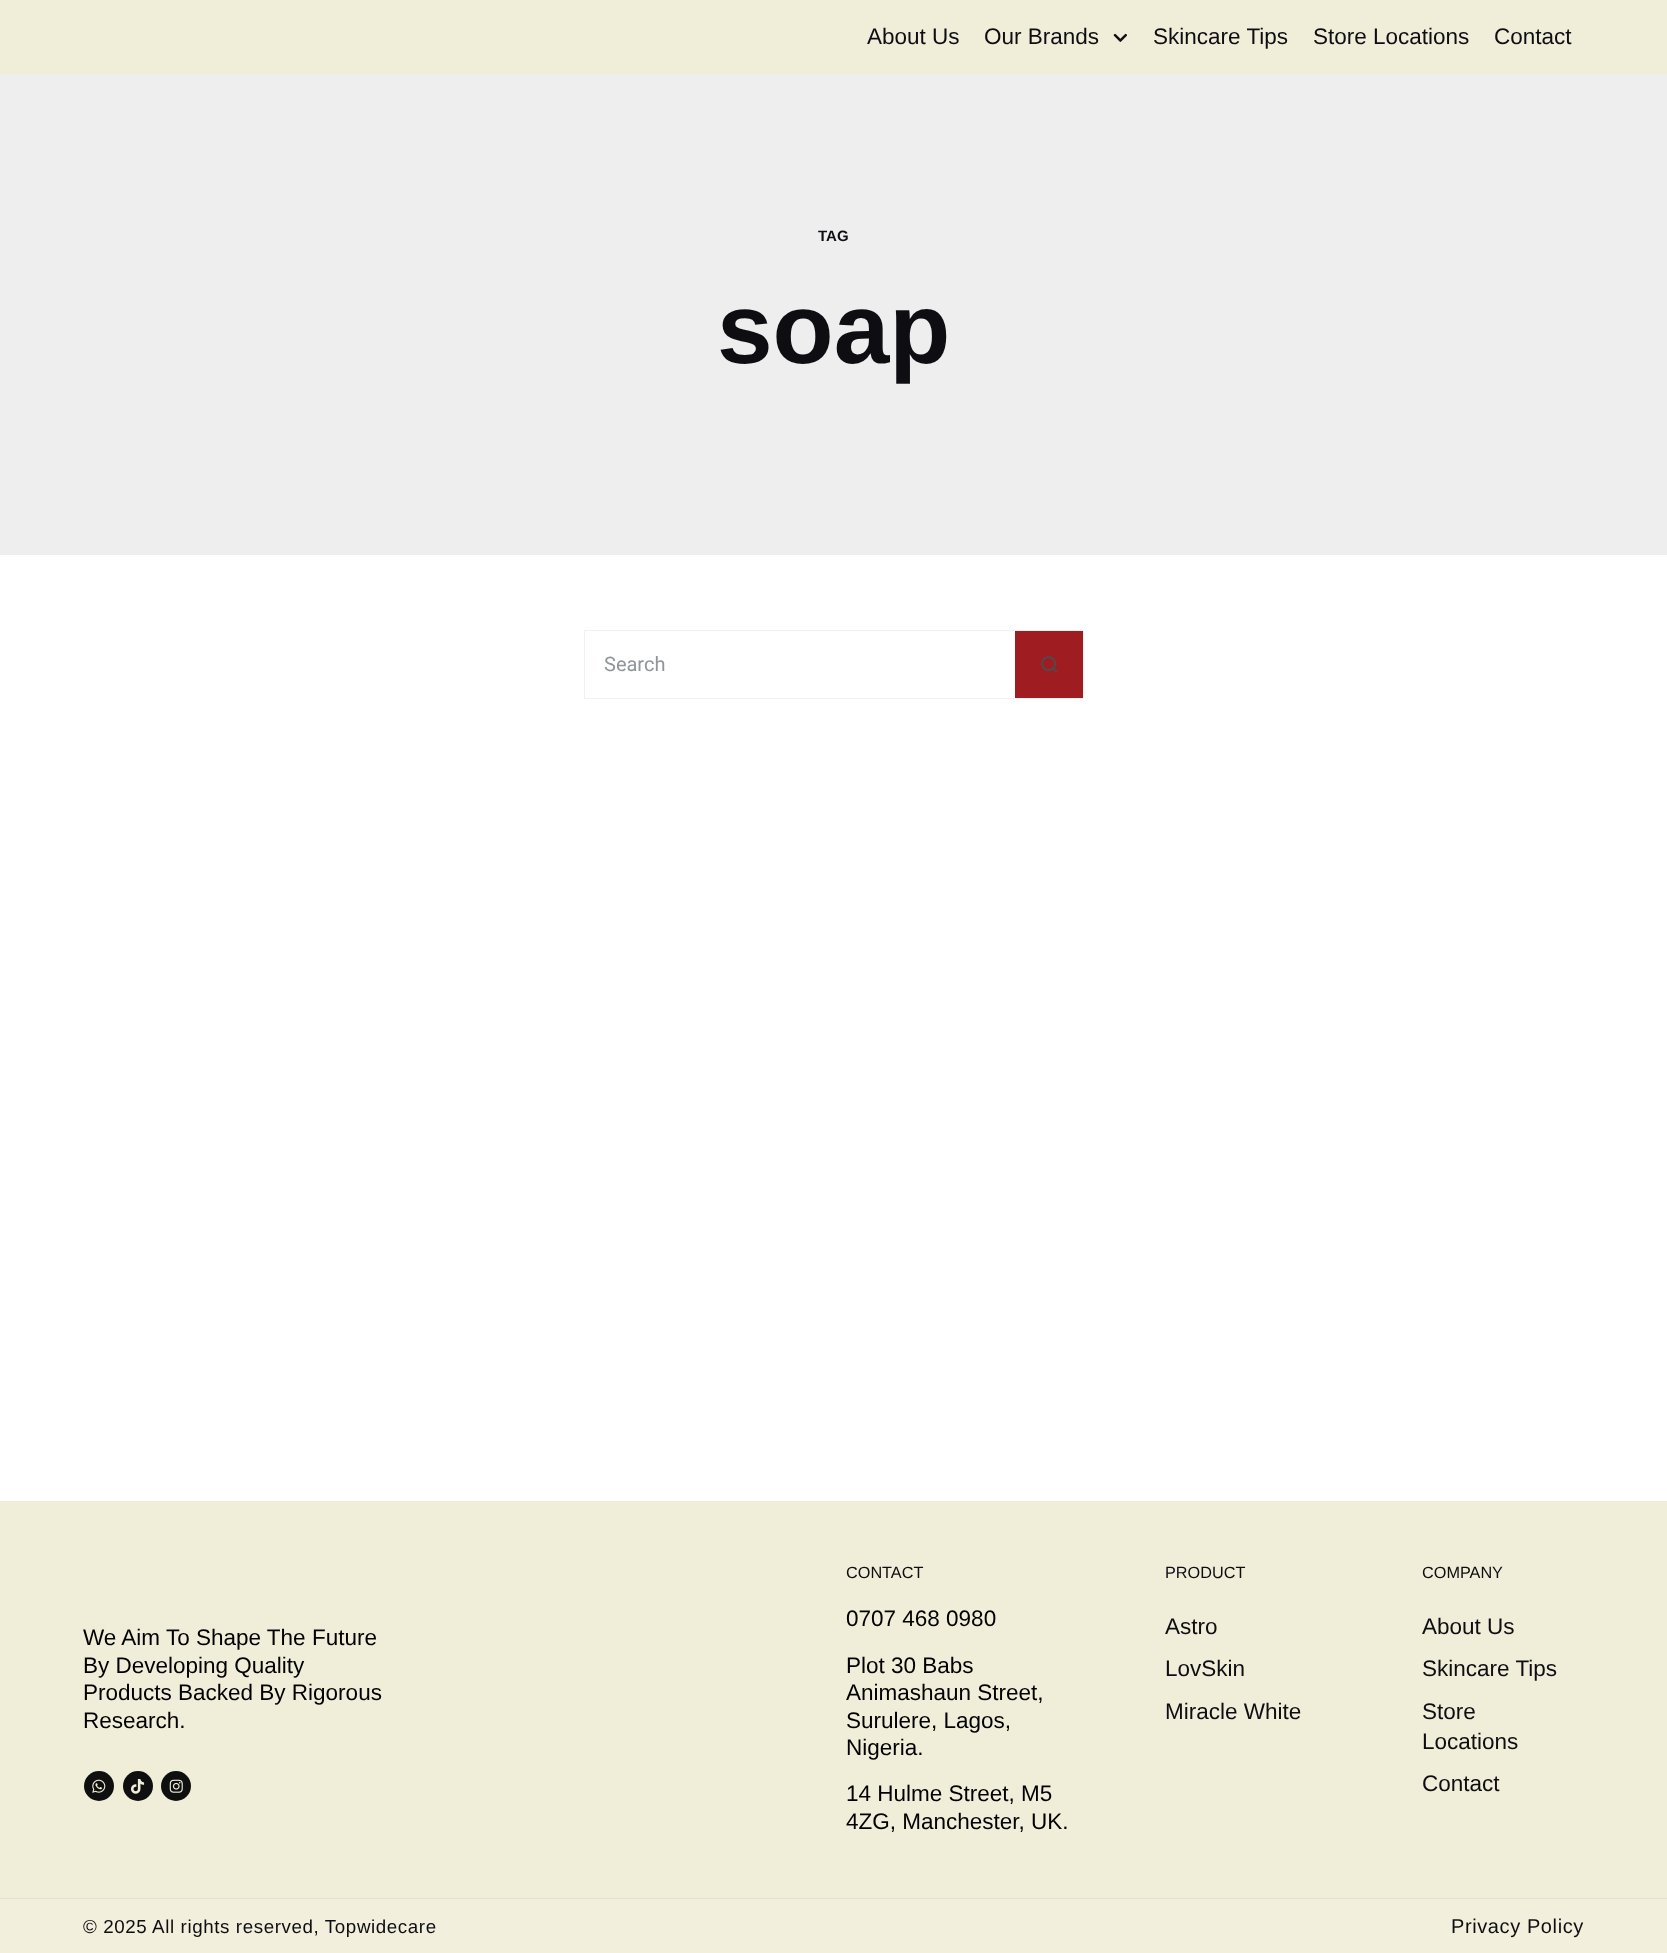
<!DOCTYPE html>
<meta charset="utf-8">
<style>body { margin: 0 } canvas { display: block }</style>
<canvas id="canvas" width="1667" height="1953"></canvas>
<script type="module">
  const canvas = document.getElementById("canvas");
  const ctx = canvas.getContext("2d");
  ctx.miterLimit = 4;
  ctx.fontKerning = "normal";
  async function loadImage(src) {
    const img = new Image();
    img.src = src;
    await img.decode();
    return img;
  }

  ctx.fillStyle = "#ffffff";
  ctx.fillRect(0, 0, 1667, 1953);
  ctx.fillStyle = "#f0eed8";
  ctx.fillRect(0, 0, 1667, 75);
  ctx.font = "22.5px Liberation Sans";
  ctx.fillStyle = "#0e0d12";
  ctx.fillText("About Us", 867, 44);
  ctx.fillText("Our Brands", 984, 44);
  ctx.drawImage(await loadImage("img1.png"), 1113, 33, 14, 9);
  ctx.fillText("Skincare Tips", 1153, 44);
  ctx.fillText("Store Locations", 1313, 44);
  ctx.fillText("Contact", 1494, 44);
  ctx.fillStyle = "#eeeeee";
  ctx.fillRect(0, 75, 1667, 480);
  ctx.font = "bold 15px Liberation Sans";
  ctx.fillStyle = "#0e0d12";
  ctx.fillText("TAG", 818, 241);
  ctx.font = "bold 100px Liberation Sans";
  ctx.fillText("soap", 717, 363);
  ctx.fillStyle = "#f1f1f1";
  ctx.fillRect(584, 630, 500, 1);
  ctx.fillRect(584, 698, 431, 1);
  ctx.fillRect(584, 630, 1, 69);
  ctx.font = "20px Roboto";
  ctx.fillStyle = "#8e959b";
  ctx.fillText("Search", 604, 671);
  ctx.fillStyle = "#9f1d20";
  ctx.fillRect(1015, 631, 68, 67);
  ctx.fillStyle = "#f1f1f1";
  ctx.fillRect(1083, 630, 1, 69);
  ctx.fillRect(1015, 698, 69, 1);
  ctx.drawImage(await loadImage("img2.png"), 1041, 656, 17, 17);
  ctx.fillStyle = "#f0eed8";
  ctx.fillRect(0, 1501, 1667, 397);
  ctx.font = "22.5px Liberation Sans";
  ctx.fillStyle = "#000000";
  ctx.fillText("We Aim To Shape The Future", 83, 1645);
  ctx.fillText("By Developing Quality", 83, 1673);
  ctx.fillText("Products Backed By Rigorous", 83, 1700);
  ctx.fillText("Research.", 83, 1728);
  ctx.fillStyle = "#0f0f0f";
  ctx.beginPath();
  ctx.arc(99, 1786, 15, 0, Math.PI * 2);
  ctx.fill();
  ctx.drawImage(await loadImage("img3.png"), 92, 1779, 14, 14);
  ctx.beginPath();
  ctx.arc(138, 1786, 15, 0, Math.PI * 2);
  ctx.fill();
  ctx.drawImage(await loadImage("img4.png"), 131, 1779, 14, 15);
  ctx.beginPath();
  ctx.arc(176, 1786, 15, 0, Math.PI * 2);
  ctx.fill();
  ctx.drawImage(await loadImage("img5.png"), 169, 1779, 14, 14);
  ctx.font = "16.25px Liberation Sans";
  ctx.fillStyle = "#0e0d12";
  ctx.fillText("CONTACT", 846, 1578);
  ctx.font = "22.5px Liberation Sans";
  ctx.fillStyle = "#000000";
  ctx.fillText("0707 468 0980", 846, 1626);
  ctx.fillText("Plot 30 Babs", 846, 1673);
  ctx.fillText("Animashaun Street,", 846, 1700);
  ctx.fillText("Surulere, Lagos,", 846, 1728);
  ctx.fillText("Nigeria.", 846, 1755);
  ctx.fillText("14 Hulme Street, M5", 846, 1801);
  ctx.fillText("4ZG, Manchester, UK.", 846, 1829);
  ctx.font = "16.25px Liberation Sans";
  ctx.fillStyle = "#0e0d12";
  ctx.fillText("PRODUCT", 1165, 1578);
  ctx.font = "22.5px Liberation Sans";
  ctx.fillText("Astro", 1165, 1634);
  ctx.fillText("LovSkin", 1165, 1676);
  ctx.fillText("Miracle White", 1165, 1719);
  ctx.font = "16.25px Liberation Sans";
  ctx.fillText("COMPANY", 1422, 1578);
  ctx.font = "22.5px Liberation Sans";
  ctx.fillText("About Us", 1422, 1634);
  ctx.fillText("Skincare Tips", 1422, 1676);
  ctx.fillText("Store", 1422, 1719);
  ctx.fillText("Locations", 1422, 1749);
  ctx.fillText("Contact", 1422, 1791);
  ctx.fillStyle = "#e4e2cf";
  ctx.fillRect(0, 1898, 1667, 1);
  ctx.fillStyle = "#f2f0dc";
  ctx.fillRect(0, 1899, 1667, 54);
  ctx.letterSpacing = "0.6px";
  ctx.font = "18.75px Liberation Sans";
  ctx.fillStyle = "#0e0d12";
  ctx.fillText("© 2025 All rights reserved, Topwidecare", 83, 1933);
  ctx.font = "20px Liberation Sans";
  ctx.fillText("Privacy Policy", 1451, 1933);
</script>
